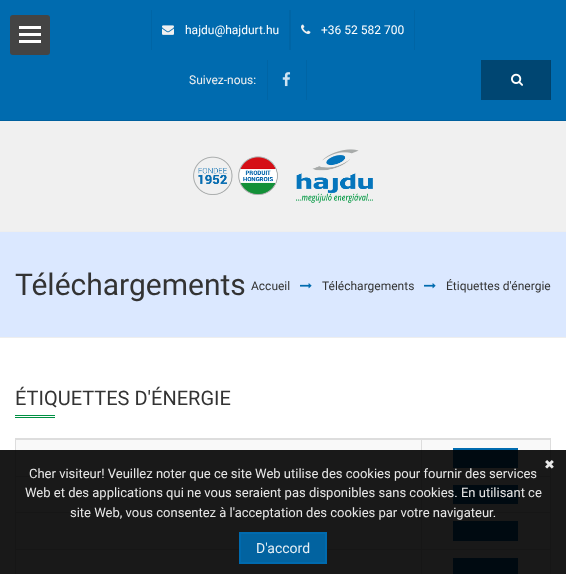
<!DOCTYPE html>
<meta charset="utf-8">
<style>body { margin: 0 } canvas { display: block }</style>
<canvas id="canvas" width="566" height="574"></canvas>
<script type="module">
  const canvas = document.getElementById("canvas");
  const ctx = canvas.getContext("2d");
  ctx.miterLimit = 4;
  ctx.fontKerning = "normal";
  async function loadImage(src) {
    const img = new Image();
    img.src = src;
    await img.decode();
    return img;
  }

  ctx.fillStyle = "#ffffff";
  ctx.fillRect(0, 0, 566, 574);
  ctx.fillStyle = "#006baf";
  ctx.fillRect(0, 0, 566, 120);
  ctx.fillStyle = "#444444";
  ctx.beginPath();
  ctx.roundRect(10, 15, 40, 40, 3);
  ctx.fill();
  ctx.fillStyle = "#ffffff";
  ctx.fillRect(19, 26, 22, 3);
  ctx.fillRect(19, 33, 22, 3);
  ctx.fillRect(19, 40, 22, 3);
  ctx.fillStyle = "#00609e";
  ctx.fillRect(0, 120, 566, 1);
  ctx.fillStyle = "#0065a5";
  ctx.fillRect(289, 10, 2, 40);
  ctx.fillRect(151, 10, 1, 40);
  ctx.drawImage(await loadImage("img1.png"), 162, 25, 12, 10);
  ctx.font = "12px Roboto";
  ctx.fillStyle = "#ffffff";
  ctx.fillText("hajdu@hajdurt.hu", 185, 34);
  ctx.fillStyle = "#0065a5";
  ctx.fillRect(414, 10, 1, 40);
  ctx.drawImage(await loadImage("img2.png"), 301, 24, 10, 10);
  ctx.fillStyle = "#ffffff";
  ctx.fillText("+36 52 582 700", 321, 34);
  ctx.fillStyle = "#f0f0f0";
  ctx.fillText("Suivez-nous:", 189, 84);
  ctx.fillStyle = "#0065a5";
  ctx.fillRect(306, 60, 1, 40);
  ctx.fillRect(267, 60, 1, 40);
  ctx.drawImage(await loadImage("img3.png"), 282, 72, 9, 15);
  ctx.fillStyle = "#004672";
  ctx.fillRect(481, 60, 69, 40);
  ctx.fillStyle = "#00426b";
  ctx.fillRect(550, 60, 1, 40);
  ctx.drawImage(await loadImage("img4.png"), 511, 73, 12, 13);
  ctx.fillStyle = "#f0f0f0";
  ctx.fillRect(0, 121, 566, 110);
  ctx.drawImage(await loadImage("img5.png"), 193, 149, 180, 54);
  ctx.fillStyle = "#dbe8ff";
  ctx.fillRect(0, 232, 566, 105);
  ctx.fillStyle = "#eeeeee";
  ctx.fillRect(0, 231, 566, 1);
  ctx.fillRect(0, 337, 566, 1);
  ctx.font = "30px Roboto";
  ctx.fillStyle = "#333333";
  ctx.fillText("Téléchargements", 15, 295);
  ctx.font = "12px Roboto";
  ctx.fillText("Accueil", 251, 290);
  ctx.drawImage(await loadImage("img6.png"), 300, 283, 12, 6);
  ctx.fillText("Téléchargements", 322, 290);
  ctx.drawImage(await loadImage("img6.png"), 424, 283, 12, 6);
  ctx.fillText("Étiquettes d'énergie", 446, 290);
  ctx.font = "20px Roboto";
  ctx.fillText("ÉTIQUETTES D'ÉNERGIE", 15, 405);
  ctx.fillStyle = "#009043";
  ctx.fillRect(15, 415, 40, 1);
  ctx.fillRect(15, 417, 40, 1);
  ctx.strokeStyle = "#dddddd";
  ctx.strokeRect(15.5, 438.5, 535, 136);
  ctx.fillStyle = "#f9f9f9";
  ctx.fillRect(16, 440, 534, 36);
  ctx.fillStyle = "#dddddd";
  ctx.fillRect(421, 439, 129, 1);
  ctx.fillRect(421, 476, 129, 1);
  ctx.fillRect(421, 512, 129, 1);
  ctx.fillStyle = "#f9f9f9";
  ctx.fillRect(16, 513, 534, 36);
  ctx.fillStyle = "#dddddd";
  ctx.fillRect(421, 549, 129, 1);
  ctx.fillRect(421, 549, 1, 25);
  ctx.fillRect(16, 549, 406, 1);
  ctx.fillRect(421, 512, 1, 38);
  ctx.fillRect(16, 512, 406, 1);
  ctx.fillRect(421, 476, 1, 37);
  ctx.fillRect(16, 476, 406, 1);
  ctx.fillRect(421, 439, 1, 38);
  ctx.fillRect(16, 439, 406, 1);
  ctx.fillStyle = "#006baf";
  ctx.fillRect(453, 448, 65, 20);
  ctx.fillRect(453, 485, 65, 19);
  ctx.fillRect(453, 521, 65, 20);
  ctx.fillRect(453, 558, 65, 16);
  ctx.fillStyle = "rgba(0, 0, 0, 0.9)";
  ctx.fillRect(0, 450, 566, 124);
  ctx.font = "13px DejaVu Sans";
  ctx.fillStyle = "#e8e8e8";
  ctx.fillText("✖", 544, 469);
  ctx.font = "13px Roboto";
  ctx.fillText("Cher visiteur! Veuillez noter que ce site Web utilise des cookies pour fournir des services", 29, 478);
  ctx.fillText("Web et des applications qui ne vous seraient pas disponibles sans cookies. En utilisant ce", 25, 497);
  ctx.fillText("site Web, vous consentez à l'acceptation des cookies par votre navigateur.", 70, 517);
  ctx.fillStyle = "rgba(0, 107, 175, 0.9)";
  ctx.beginPath();
  ctx.rect(240, 533, 86, 30);
  ctx.fill();
  ctx.strokeStyle = "#006aae";
  ctx.lineWidth = 2;
  ctx.stroke();
  ctx.font = "14px Roboto";
  ctx.fillStyle = "#e6eff5";
  ctx.fillText("D'accord", 256, 553);
</script>
